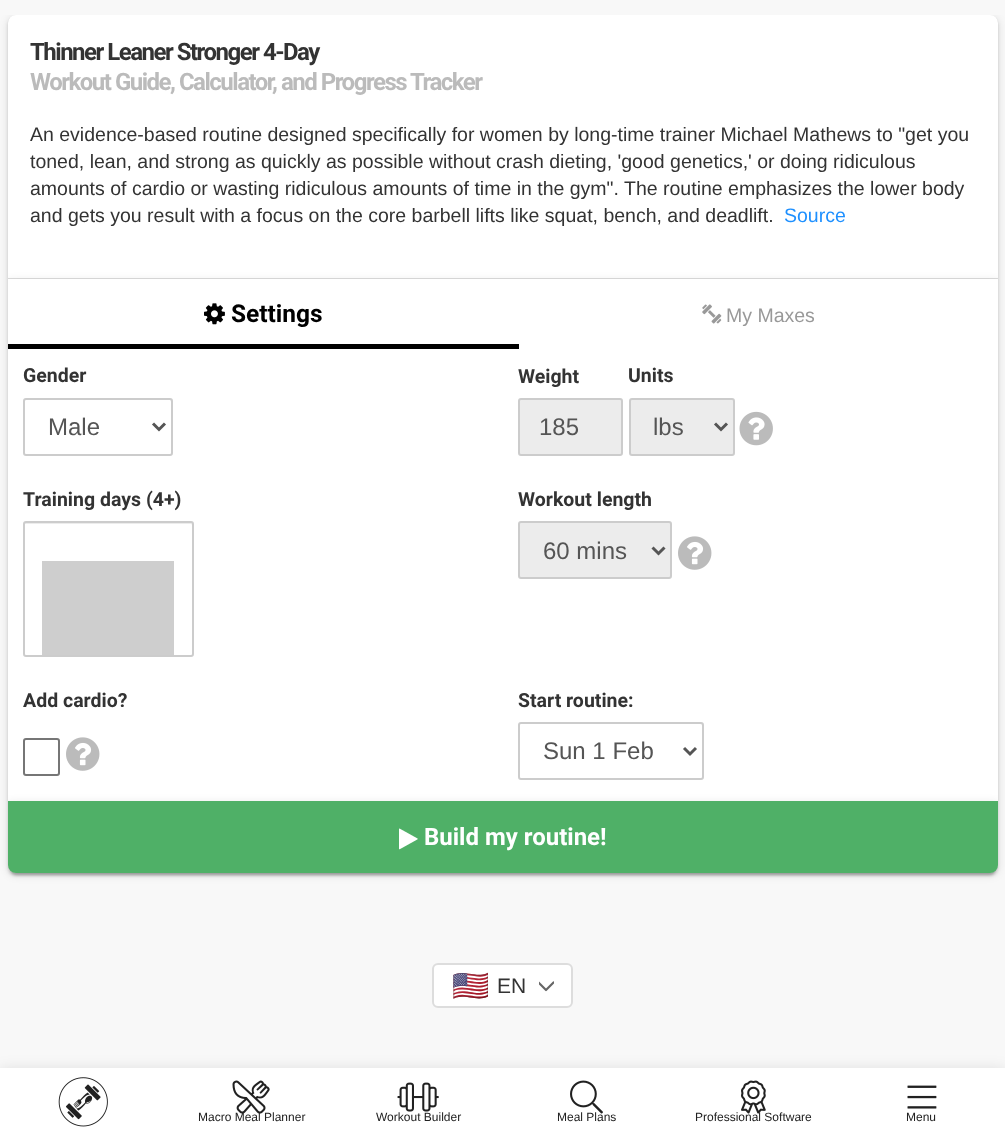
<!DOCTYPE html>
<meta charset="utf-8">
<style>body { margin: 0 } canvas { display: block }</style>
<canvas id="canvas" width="1005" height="1134"></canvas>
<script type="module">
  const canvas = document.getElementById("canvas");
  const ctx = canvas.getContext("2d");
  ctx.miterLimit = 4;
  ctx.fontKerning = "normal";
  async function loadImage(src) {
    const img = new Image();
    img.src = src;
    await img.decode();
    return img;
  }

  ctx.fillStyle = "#f8f8f8";
  ctx.fillRect(0, 0, 1005, 1134);
  ctx.save();
  ctx.beginPath();
  ctx.rect(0, 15, 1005, 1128);
  ctx.clip();
  ctx.fillStyle = "rgba(0, 0, 0, 0.12)";
  ctx.filter = "blur(4px)";
  ctx.beginPath();
  ctx.roundRect(8, 17, 990, 858, 8);
  ctx.fill();
  ctx.filter = "none";
  ctx.restore();
  ctx.fillStyle = "rgba(0, 0, 0, 0.14)";
  ctx.filter = "blur(1.5px)";
  ctx.beginPath();
  ctx.roundRect(8, 18, 990, 858, 8);
  ctx.fill();
  ctx.filter = "none";
  ctx.fillStyle = "rgba(0, 0, 0, 0.2)";
  ctx.filter = "blur(1px)";
  ctx.beginPath();
  ctx.roundRect(11, 23, 984, 852, 5);
  ctx.fill();
  ctx.filter = "none";
  ctx.save();
  ctx.beginPath();
  ctx.roundRect(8, 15, 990, 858, 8);
  ctx.clip();
  ctx.fillStyle = "rgba(0, 0, 0, 0.12)";
  ctx.filter = "blur(4px)";
  ctx.beginPath();
  ctx.rect(8, 17, 990, 264);
  ctx.fill();
  ctx.filter = "none";
  ctx.fillStyle = "rgba(0, 0, 0, 0.14)";
  ctx.filter = "blur(1.5px)";
  ctx.beginPath();
  ctx.rect(8, 18, 990, 264);
  ctx.fill();
  ctx.filter = "none";
  ctx.restore();
  ctx.fillStyle = "#ffffff";
  ctx.beginPath();
  ctx.roundRect(8, 15, 990, 264, [8, 8, 0, 0]);
  ctx.fill();
  ctx.fillStyle = "#dddddd";
  ctx.fillRect(8, 278, 990, 1);
  ctx.letterSpacing = "-1.5px";
  ctx.font = "bold 24px Roboto";
  ctx.fillStyle = "#333333";
  ctx.fillText("Thinner Leaner Stronger 4-Day", 30, 60);
  ctx.fillStyle = "#bbbbbb";
  ctx.fillText("Workout Guide, Calculator, and Progress Tracker", 30, 90);
  ctx.letterSpacing = "0px";
  ctx.font = "19.5px Liberation Sans";
  ctx.fillStyle = "#333333";
  ctx.fillText("An evidence-based routine designed specifically for women by long-time trainer Michael Mathews to \"get you", 30, 141);
  ctx.fillText("toned, lean, and strong as quickly as possible without crash dieting, 'good genetics,' or doing ridiculous", 30, 168);
  ctx.fillText("amounts of cardio or wasting ridiculous amounts of time in the gym\". The routine emphasizes the lower body", 30, 195);
  ctx.fillText("and gets you result with a focus on the core barbell lifts like squat, bench, and deadlift.", 30, 222);
  ctx.fillStyle = "#1e90ff";
  ctx.fillText("Source", 784, 222);
  ctx.save();
  ctx.beginPath();
  ctx.roundRect(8, 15, 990, 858, 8);
  ctx.clip();
  ctx.fillStyle = "rgba(0, 0, 0, 0.12)";
  ctx.filter = "blur(4px)";
  ctx.beginPath();
  ctx.rect(8, 281, 990, 594);
  ctx.fill();
  ctx.filter = "none";
  ctx.fillStyle = "rgba(0, 0, 0, 0.14)";
  ctx.filter = "blur(1.5px)";
  ctx.beginPath();
  ctx.rect(8, 282, 990, 594);
  ctx.fill();
  ctx.filter = "none";
  ctx.restore();
  ctx.fillStyle = "#ffffff";
  ctx.beginPath();
  ctx.roundRect(8, 279, 990, 594, [0, 0, 8, 8]);
  ctx.fill();
  ctx.fillStyle = "#000000";
  ctx.fillRect(8, 344, 511, 5);
  ctx.drawImage(await loadImage("img1.png"), 204, 303, 21, 22);
  ctx.font = "bold 24.5px Roboto";
  ctx.fillText("Settings", 231, 322);
  ctx.drawImage(await loadImage("img2.png"), 702, 304, 20, 20);
  ctx.font = "19.5px Liberation Sans";
  ctx.fillStyle = "#999999";
  ctx.fillText("My Maxes", 726, 322);
  ctx.font = "bold 19.5px Roboto";
  ctx.fillStyle = "#333333";
  ctx.fillText("Gender", 23, 382);
  ctx.fillStyle = "#ececec";
  ctx.beginPath();
  ctx.moveTo(26, 400);
  ctx.lineTo(170, 400);
  ctx.lineTo(171, 402);
  ctx.bezierCurveTo(171, 401, 171, 399, 170, 399);
  ctx.lineTo(26, 399);
  ctx.bezierCurveTo(24, 399, 24, 401, 24, 402);
  ctx.bezierCurveTo(24, 401, 25, 400, 26, 400);
  ctx.closePath();
  ctx.fill();
  ctx.beginPath();
  ctx.roundRect(24, 399, 148, 56, 2);
  ctx.strokeStyle = "#cccccc";
  ctx.lineWidth = 2;
  ctx.stroke();
  ctx.beginPath();
  ctx.moveTo(153, 423.5);
  ctx.lineTo(159, 429.5);
  ctx.lineTo(165, 423.5);
  ctx.strokeStyle = "#555555";
  ctx.lineWidth = 3;
  ctx.stroke();
  ctx.font = "24px Liberation Sans";
  ctx.fillStyle = "#555555";
  ctx.fillText("Male", 48, 435);
  ctx.font = "bold 19.5px Roboto";
  ctx.fillStyle = "#333333";
  ctx.fillText("Weight", 518, 383);
  ctx.fillStyle = "#ececec";
  ctx.beginPath();
  ctx.moveTo(520, 399);
  ctx.bezierCurveTo(520, 399, 519, 400, 519, 400);
  ctx.lineTo(519, 454);
  ctx.bezierCurveTo(519, 454, 520, 455, 520, 455);
  ctx.lineTo(620, 455);
  ctx.bezierCurveTo(620, 455, 621, 454, 621, 454);
  ctx.lineTo(621, 400);
  ctx.bezierCurveTo(621, 400, 620, 399, 620, 399);
  ctx.closePath();
  ctx.fill();
  ctx.beginPath();
  ctx.roundRect(519, 399, 103, 56, 2);
  ctx.strokeStyle = "#cccccc";
  ctx.lineWidth = 2;
  ctx.stroke();
  ctx.font = "24px Liberation Sans";
  ctx.fillStyle = "#555555";
  ctx.fillText("185", 539, 435);
  ctx.font = "bold 19.5px Roboto";
  ctx.fillStyle = "#333333";
  ctx.fillText("Units", 628, 382);
  ctx.fillStyle = "#ececec";
  ctx.beginPath();
  ctx.moveTo(632, 399);
  ctx.bezierCurveTo(631, 399, 630, 400, 630, 400);
  ctx.lineTo(630, 454);
  ctx.bezierCurveTo(630, 454, 631, 455, 632, 455);
  ctx.lineTo(732, 455);
  ctx.bezierCurveTo(733, 455, 734, 454, 734, 454);
  ctx.lineTo(734, 400);
  ctx.bezierCurveTo(734, 400, 733, 399, 732, 399);
  ctx.closePath();
  ctx.fill();
  ctx.beginPath();
  ctx.roundRect(630, 399, 104, 56, 2);
  ctx.stroke();
  ctx.beginPath();
  ctx.moveTo(715, 423.5);
  ctx.lineTo(721, 429.5);
  ctx.lineTo(727, 423.5);
  ctx.strokeStyle = "#555555";
  ctx.lineWidth = 3;
  ctx.stroke();
  ctx.font = "24px Liberation Sans";
  ctx.fillStyle = "#555555";
  ctx.fillText("lbs", 653, 435);
  ctx.drawImage(await loadImage("img3.png"), 739, 411, 34, 35);
  ctx.font = "bold 19.5px Roboto";
  ctx.fillStyle = "#333333";
  ctx.fillText("Training days (4+)", 23, 506);
  ctx.fillStyle = "#ececec";
  ctx.beginPath();
  ctx.moveTo(26, 524);
  ctx.lineTo(190, 524);
  ctx.bezierCurveTo(191, 524, 192, 524, 192, 525);
  ctx.lineTo(192, 524);
  ctx.bezierCurveTo(192, 523, 191, 522, 190, 522);
  ctx.lineTo(26, 522);
  ctx.bezierCurveTo(25, 522, 24, 523, 24, 524);
  ctx.lineTo(24, 525);
  ctx.bezierCurveTo(24, 524, 25, 524, 26, 524);
  ctx.closePath();
  ctx.fill();
  ctx.beginPath();
  ctx.roundRect(24, 522, 169, 134, 2);
  ctx.strokeStyle = "#cccccc";
  ctx.lineWidth = 2;
  ctx.stroke();
  ctx.fillStyle = "#cecece";
  ctx.fillRect(42, 561, 132, 94);
  ctx.fillStyle = "#333333";
  ctx.fillText("Workout length", 518, 506);
  ctx.fillStyle = "#ececec";
  ctx.beginPath();
  ctx.moveTo(520, 522);
  ctx.lineTo(519, 522);
  ctx.bezierCurveTo(519, 523, 519, 571, 519, 576);
  ctx.bezierCurveTo(519, 577, 520, 578, 520, 578);
  ctx.lineTo(670, 578);
  ctx.lineTo(671, 577);
  ctx.lineTo(671, 568);
  ctx.lineTo(671, 523);
  ctx.lineTo(670, 522);
  ctx.closePath();
  ctx.fill();
  ctx.beginPath();
  ctx.roundRect(519, 522, 152, 56, 2);
  ctx.stroke();
  ctx.beginPath();
  ctx.moveTo(652.5, 547.5);
  ctx.lineTo(658.5, 553.5);
  ctx.lineTo(664.5, 547.5);
  ctx.strokeStyle = "#555555";
  ctx.lineWidth = 3;
  ctx.stroke();
  ctx.font = "24px Liberation Sans";
  ctx.fillStyle = "#555555";
  ctx.fillText("60 mins", 543, 559);
  ctx.drawImage(await loadImage("img4.png"), 678, 536, 34, 34);
  ctx.font = "bold 19.5px Roboto";
  ctx.fillStyle = "#333333";
  ctx.fillText("Add cardio?", 23, 707);
  ctx.beginPath();
  ctx.roundRect(24, 739, 35, 36, 2);
  ctx.strokeStyle = "#767676";
  ctx.lineWidth = 2;
  ctx.stroke();
  ctx.drawImage(await loadImage("img4.png"), 66, 737, 34, 34);
  ctx.fillText("Start routine:", 518, 707);
  ctx.fillStyle = "#ececec";
  ctx.beginPath();
  ctx.moveTo(520, 724);
  ctx.lineTo(700, 724);
  ctx.bezierCurveTo(701, 724, 702, 725, 702, 726);
  ctx.bezierCurveTo(702, 725, 702, 723, 700, 723);
  ctx.lineTo(520, 723);
  ctx.bezierCurveTo(519, 723, 519, 725, 519, 726);
  ctx.closePath();
  ctx.fill();
  ctx.beginPath();
  ctx.roundRect(519, 723, 184, 56, 2);
  ctx.strokeStyle = "#cccccc";
  ctx.stroke();
  ctx.beginPath();
  ctx.moveTo(684, 748);
  ctx.lineTo(690, 754);
  ctx.lineTo(696, 748);
  ctx.strokeStyle = "#555555";
  ctx.lineWidth = 3;
  ctx.stroke();
  ctx.font = "24px Liberation Sans";
  ctx.fillStyle = "#555555";
  ctx.fillText("Sun 1 Feb", 543, 759);
  ctx.save();
  ctx.beginPath();
  ctx.roundRect(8, 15, 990, 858, 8);
  ctx.clip();
  ctx.fillStyle = "rgba(0, 0, 0, 0.12)";
  ctx.filter = "blur(4px)";
  ctx.beginPath();
  ctx.rect(8, 803, 990, 72);
  ctx.fill();
  ctx.filter = "none";
  ctx.fillStyle = "rgba(0, 0, 0, 0.14)";
  ctx.filter = "blur(1.5px)";
  ctx.beginPath();
  ctx.rect(8, 804, 990, 72);
  ctx.fill();
  ctx.filter = "none";
  ctx.restore();
  ctx.fillStyle = "#4fb067";
  ctx.beginPath();
  ctx.roundRect(8, 801, 990, 72, [0, 0, 8, 8]);
  ctx.fill();
  ctx.drawImage(await loadImage("img5.png"), 399, 828, 19, 22);
  ctx.font = "bold 24px Roboto";
  ctx.fillStyle = "#ffffff";
  ctx.fillText("Build my routine!", 424, 845);
  ctx.beginPath();
  ctx.roundRect(433, 964, 139, 43, 5);
  ctx.fill();
  ctx.strokeStyle = "#dddddd";
  ctx.lineWidth = 2;
  ctx.stroke();
  ctx.font = "30px Noto Color Emoji";
  ctx.fillStyle = "#333333";
  ctx.fillText("🇺🇸", 452, 996);
  ctx.font = "21px Liberation Sans";
  ctx.fillText("EN", 497, 993);
  ctx.save();
  ctx.beginPath();
  ctx.rect(539, 978, 15, 15);
  ctx.clip();
  ctx.beginPath();
  ctx.moveTo(538.5, 982.5);
  ctx.lineTo(546, 990);
  ctx.lineTo(553.5, 982.5);
  ctx.strokeStyle = "#666666";
  ctx.lineWidth = 2.2;
  ctx.lineCap = "round";
  ctx.lineJoin = "round";
  ctx.stroke();
  ctx.restore();
  ctx.fillStyle = "rgba(0, 0, 0, 0.12)";
  ctx.filter = "blur(7.5px)";
  ctx.beginPath();
  ctx.rect(0, 1070, 1005, 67);
  ctx.fill();
  ctx.filter = "none";
  ctx.fillStyle = "#ffffff";
  ctx.fillRect(0, 1068, 1005, 66);
  ctx.drawImage(await loadImage("img6.png"), 58, 1077, 50, 50);
  ctx.drawImage(await loadImage("img7.png"), 232, 1080, 38, 34);
  ctx.font = "12px Liberation Sans";
  ctx.fillStyle = "#212121";
  ctx.fillText("Macro Meal Planner", 198, 1121);
  ctx.drawImage(await loadImage("img8.png"), 397, 1082, 42, 30);
  ctx.fillText("Workout Builder", 376, 1121);
  ctx.drawImage(await loadImage("img9.png"), 570, 1080, 33, 34);
  ctx.fillText("Meal Plans", 557, 1121);
  ctx.drawImage(await loadImage("img10.png"), 741, 1080, 25, 34);
  ctx.fillText("Professional Software", 695, 1121);
  ctx.drawImage(await loadImage("img11.png"), 907, 1085, 30, 24);
  ctx.fillText("Menu", 906, 1121);
</script>
